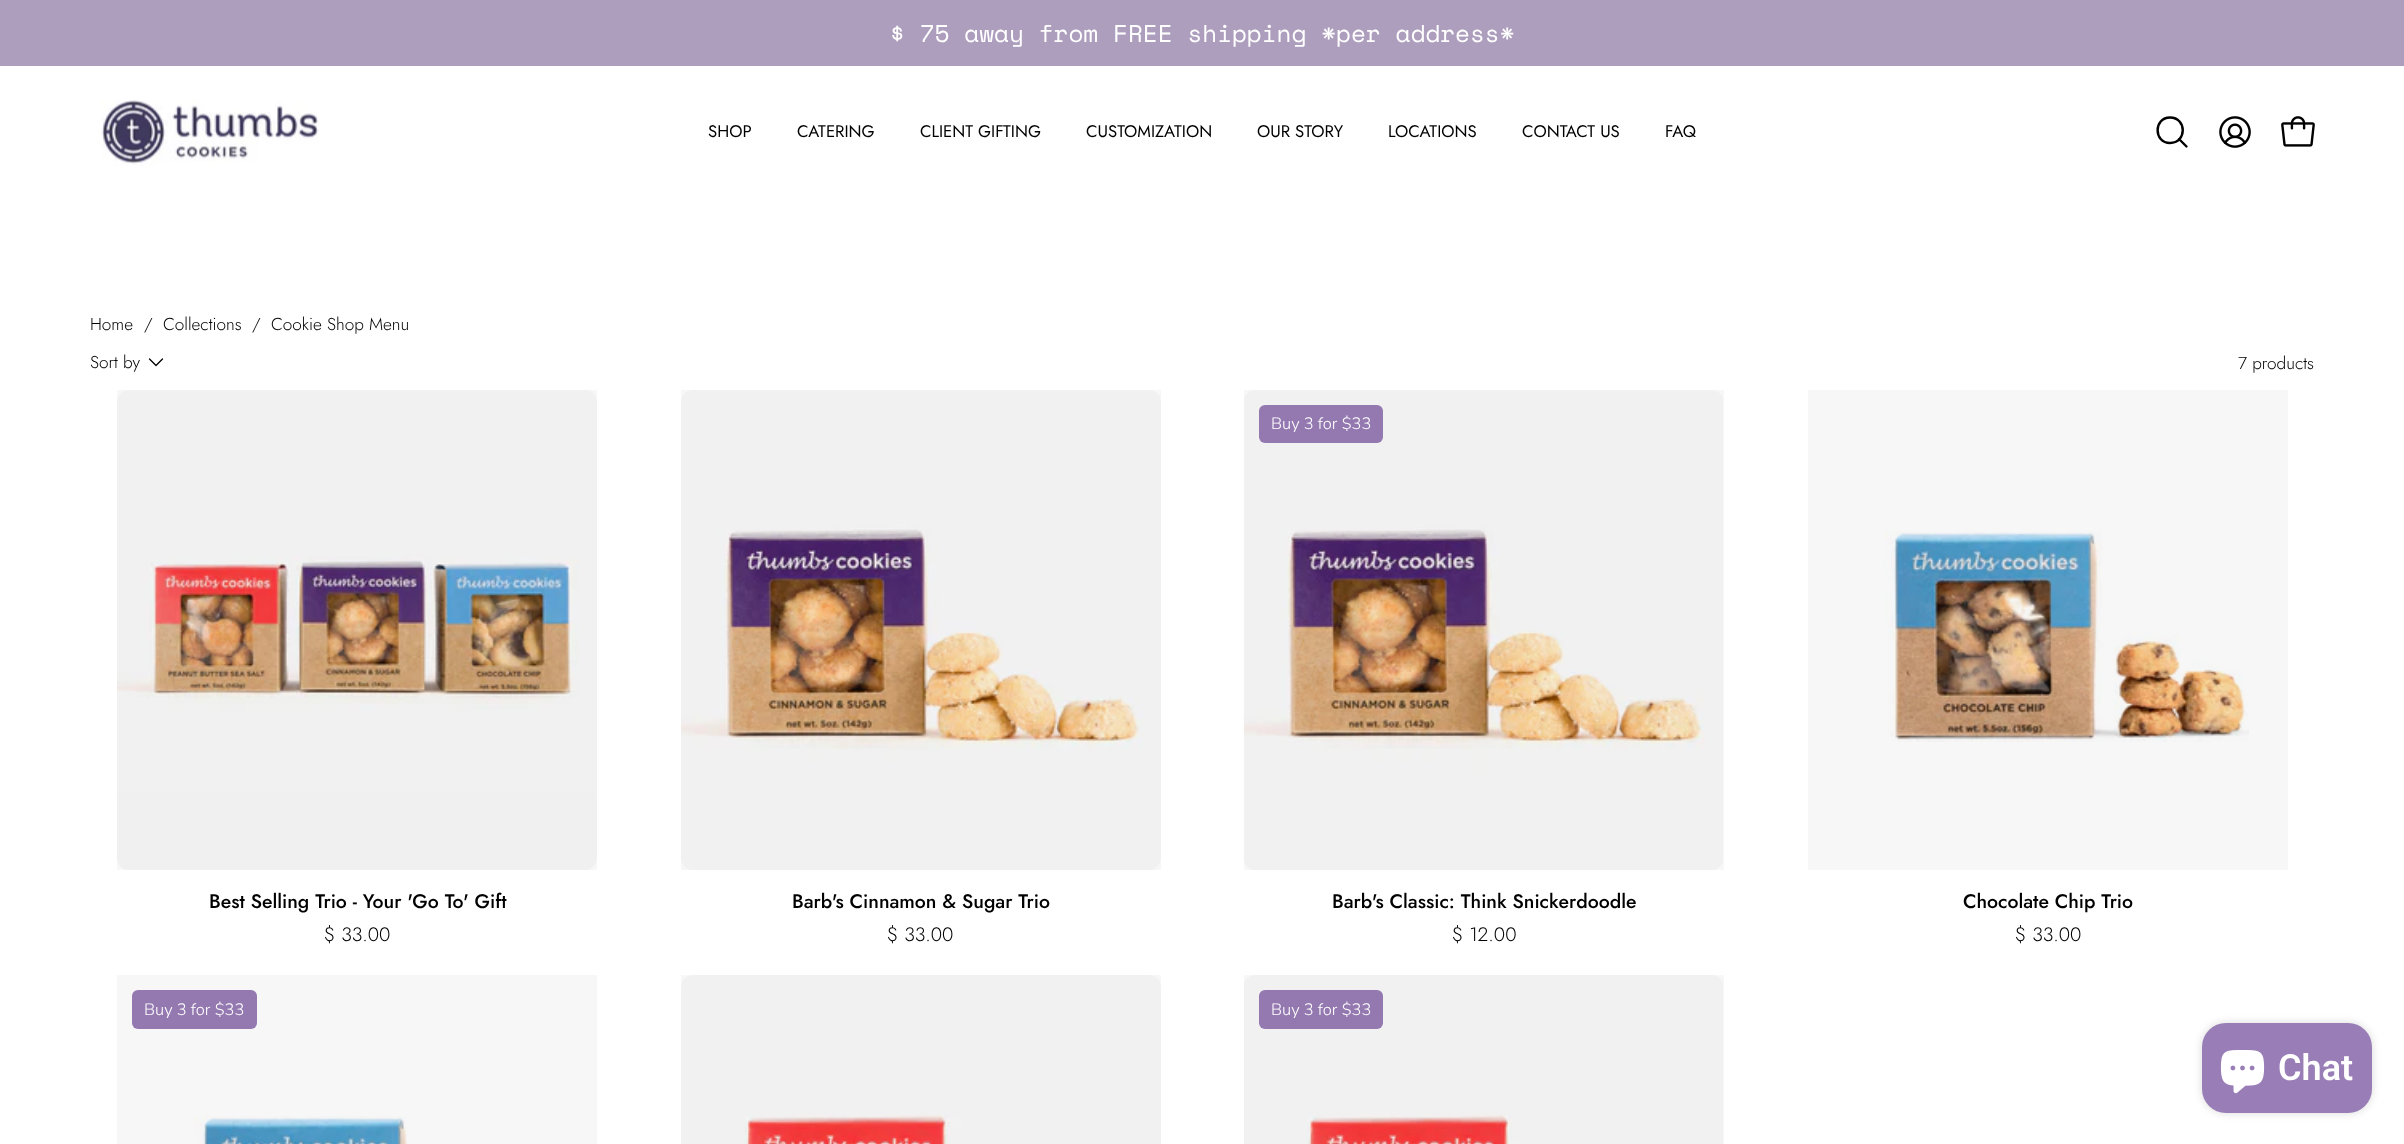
<!DOCTYPE html>
<meta charset="utf-8">
<style>body { margin: 0 } canvas { display: block }</style>
<canvas id="canvas" width="2404" height="1144"></canvas>
<script type="module">
  const canvas = document.getElementById("canvas");
  const ctx = canvas.getContext("2d");
  ctx.miterLimit = 4;
  ctx.fontKerning = "normal";
  async function loadImage(src) {
    const img = new Image();
    img.src = src;
    await img.decode();
    return img;
  }

  ctx.fillStyle = "#ffffff";
  ctx.fillRect(0, 0, 2404, 1144);
  ctx.fillStyle = "#ae9ebe";
  ctx.fillRect(0, 0, 2404, 66);
  ctx.font = "24.3px Space Mono";
  ctx.fillStyle = "#ffffff";
  ctx.fillText("$ 75 away from FREE shipping *per address*", 890, 42);
  ctx.drawImage(await loadImage("img1.png"), 101, 100, 218, 66);
  ctx.font = "16.75px Jost";
  ctx.fillStyle = "#000000";
  ctx.fillText("SHOP", 708, 137);
  ctx.fillText("CATERING", 797, 137);
  ctx.fillText("CLIENT GIFTING", 920, 137);
  ctx.fillText("CUSTOMIZATION", 1086, 137);
  ctx.fillText("OUR STORY", 1257, 137);
  ctx.fillText("LOCATIONS", 1388, 137);
  ctx.fillText("CONTACT US", 1522, 137);
  ctx.fillText("FAQ", 1665, 137);
  ctx.beginPath();
  ctx.moveTo(2170, 143);
  ctx.bezierCurveTo(2187, 143, 2187, 117.5, 2170, 117.5);
  ctx.bezierCurveTo(2153.5, 117.5, 2153.5, 143, 2170, 143);
  ctx.closePath();
  ctx.moveTo(2179, 139);
  ctx.lineTo(2186.5, 146.5);
  ctx.strokeStyle = "#000000";
  ctx.lineWidth = 2.4;
  ctx.lineCap = "round";
  ctx.lineJoin = "round";
  ctx.stroke();
  ctx.drawImage(await loadImage("img2.png"), 2219, 116, 32, 32);
  ctx.drawImage(await loadImage("img3.png"), 2281, 116, 34, 31);
  ctx.font = "300 17.25px Jost";
  ctx.fillText("Home", 90, 330);
  ctx.fillText("/", 144, 330);
  ctx.fillText("Collections", 163, 330);
  ctx.fillText("/", 252, 330);
  ctx.fillText("Cookie Shop Menu", 271, 330);
  ctx.fillText("Sort by", 90, 368);
  ctx.beginPath();
  ctx.moveTo(162.5, 359);
  ctx.lineTo(156, 365.5);
  ctx.lineTo(149.5, 359);
  ctx.lineWidth = 1.3;
  ctx.stroke();
  ctx.fillText("7 products", 2238, 369);
  ctx.drawImage(await loadImage("img4.png"), 117, 390, 480, 480);
  ctx.fillStyle = "rgba(0, 0, 0, 0.03)";
  ctx.fillRect(117, 390, 480, 480);
  ctx.font = "500 19.5px Jost";
  ctx.fillStyle = "#000000";
  ctx.fillText("Best Selling Trio - Your 'Go To' Gift", 209, 908);
  ctx.font = "300 19.5px Jost";
  ctx.fillText("$ 33.00", 324, 941);
  ctx.drawImage(await loadImage("img5.png"), 681, 390, 480, 480);
  ctx.fillStyle = "rgba(0, 0, 0, 0.03)";
  ctx.fillRect(681, 390, 480, 480);
  ctx.font = "500 19.5px Jost";
  ctx.fillStyle = "#000000";
  ctx.fillText("Barb's Cinnamon & Sugar Trio", 792, 908);
  ctx.font = "300 19.5px Jost";
  ctx.fillText("$ 33.00", 887, 941);
  ctx.drawImage(await loadImage("img6.png"), 1243, 390, 480, 480);
  ctx.fillStyle = "#997db6";
  ctx.beginPath();
  ctx.roundRect(1259, 405, 124, 38, 6);
  ctx.fill();
  ctx.fillStyle = "rgba(0, 0, 0, 0.03)";
  ctx.fillRect(1244, 390, 480, 480);
  ctx.font = "300 16.5px Nunito";
  ctx.fillStyle = "#ffffff";
  ctx.fillText("Buy 3 for $33", 1271, 429);
  ctx.font = "500 19.5px Jost";
  ctx.fillStyle = "#000000";
  ctx.fillText("Barb's Classic: Think Snickerdoodle", 1332, 908);
  ctx.font = "300 19.5px Jost";
  ctx.fillText("$ 12.00", 1452, 941);
  ctx.drawImage(await loadImage("img7.png"), 1884, 531, 365, 211);
  ctx.fillStyle = "rgba(0, 0, 0, 0.03)";
  ctx.fillRect(1808, 390, 480, 480);
  ctx.font = "500 19.5px Jost";
  ctx.fillStyle = "#000000";
  ctx.fillText("Chocolate Chip Trio", 1963, 908);
  ctx.font = "300 19.5px Jost";
  ctx.fillText("$ 33.00", 2015, 941);
  ctx.fillStyle = "#997db6";
  ctx.beginPath();
  ctx.roundRect(132, 990, 125, 39, 6);
  ctx.fill();
  ctx.drawImage(await loadImage("img8.png"), 194, 1116, 213, 28);
  ctx.fillStyle = "rgba(0, 0, 0, 0.03)";
  ctx.fillRect(117, 975, 480, 169);
  ctx.font = "300 16.5px Nunito";
  ctx.fillStyle = "#ffffff";
  ctx.fillText("Buy 3 for $33", 144, 1015);
  ctx.drawImage(await loadImage("img9.png"), 681, 975, 480, 169);
  ctx.fillStyle = "rgba(0, 0, 0, 0.03)";
  ctx.fillRect(681, 975, 480, 169);
  ctx.drawImage(await loadImage("img10.png"), 1244, 975, 479, 169);
  ctx.fillStyle = "#997db6";
  ctx.beginPath();
  ctx.roundRect(1259, 990, 124, 39, 6);
  ctx.fill();
  ctx.fillStyle = "rgba(0, 0, 0, 0.03)";
  ctx.fillRect(1244, 975, 480, 169);
  ctx.fillStyle = "#ffffff";
  ctx.fillText("Buy 3 for $33", 1271, 1015);
  ctx.fillStyle = "rgba(0, 0, 0, 0.15)";
  ctx.filter = "blur(4px)";
  ctx.beginPath();
  ctx.roundRect(2202, 1023, 170, 90, 24);
  ctx.fill();
  ctx.filter = "none";
  ctx.fillStyle = "#997db6";
  ctx.beginPath();
  ctx.roundRect(2202, 1023, 170, 90, 24);
  ctx.fill();
  ctx.drawImage(await loadImage("img11.png"), 2220, 1050, 45, 44);
  ctx.font = "600 36px Roboto";
  ctx.fillStyle = "#ffffff";
  ctx.fillText("Chat", 2278, 1080);
</script>
